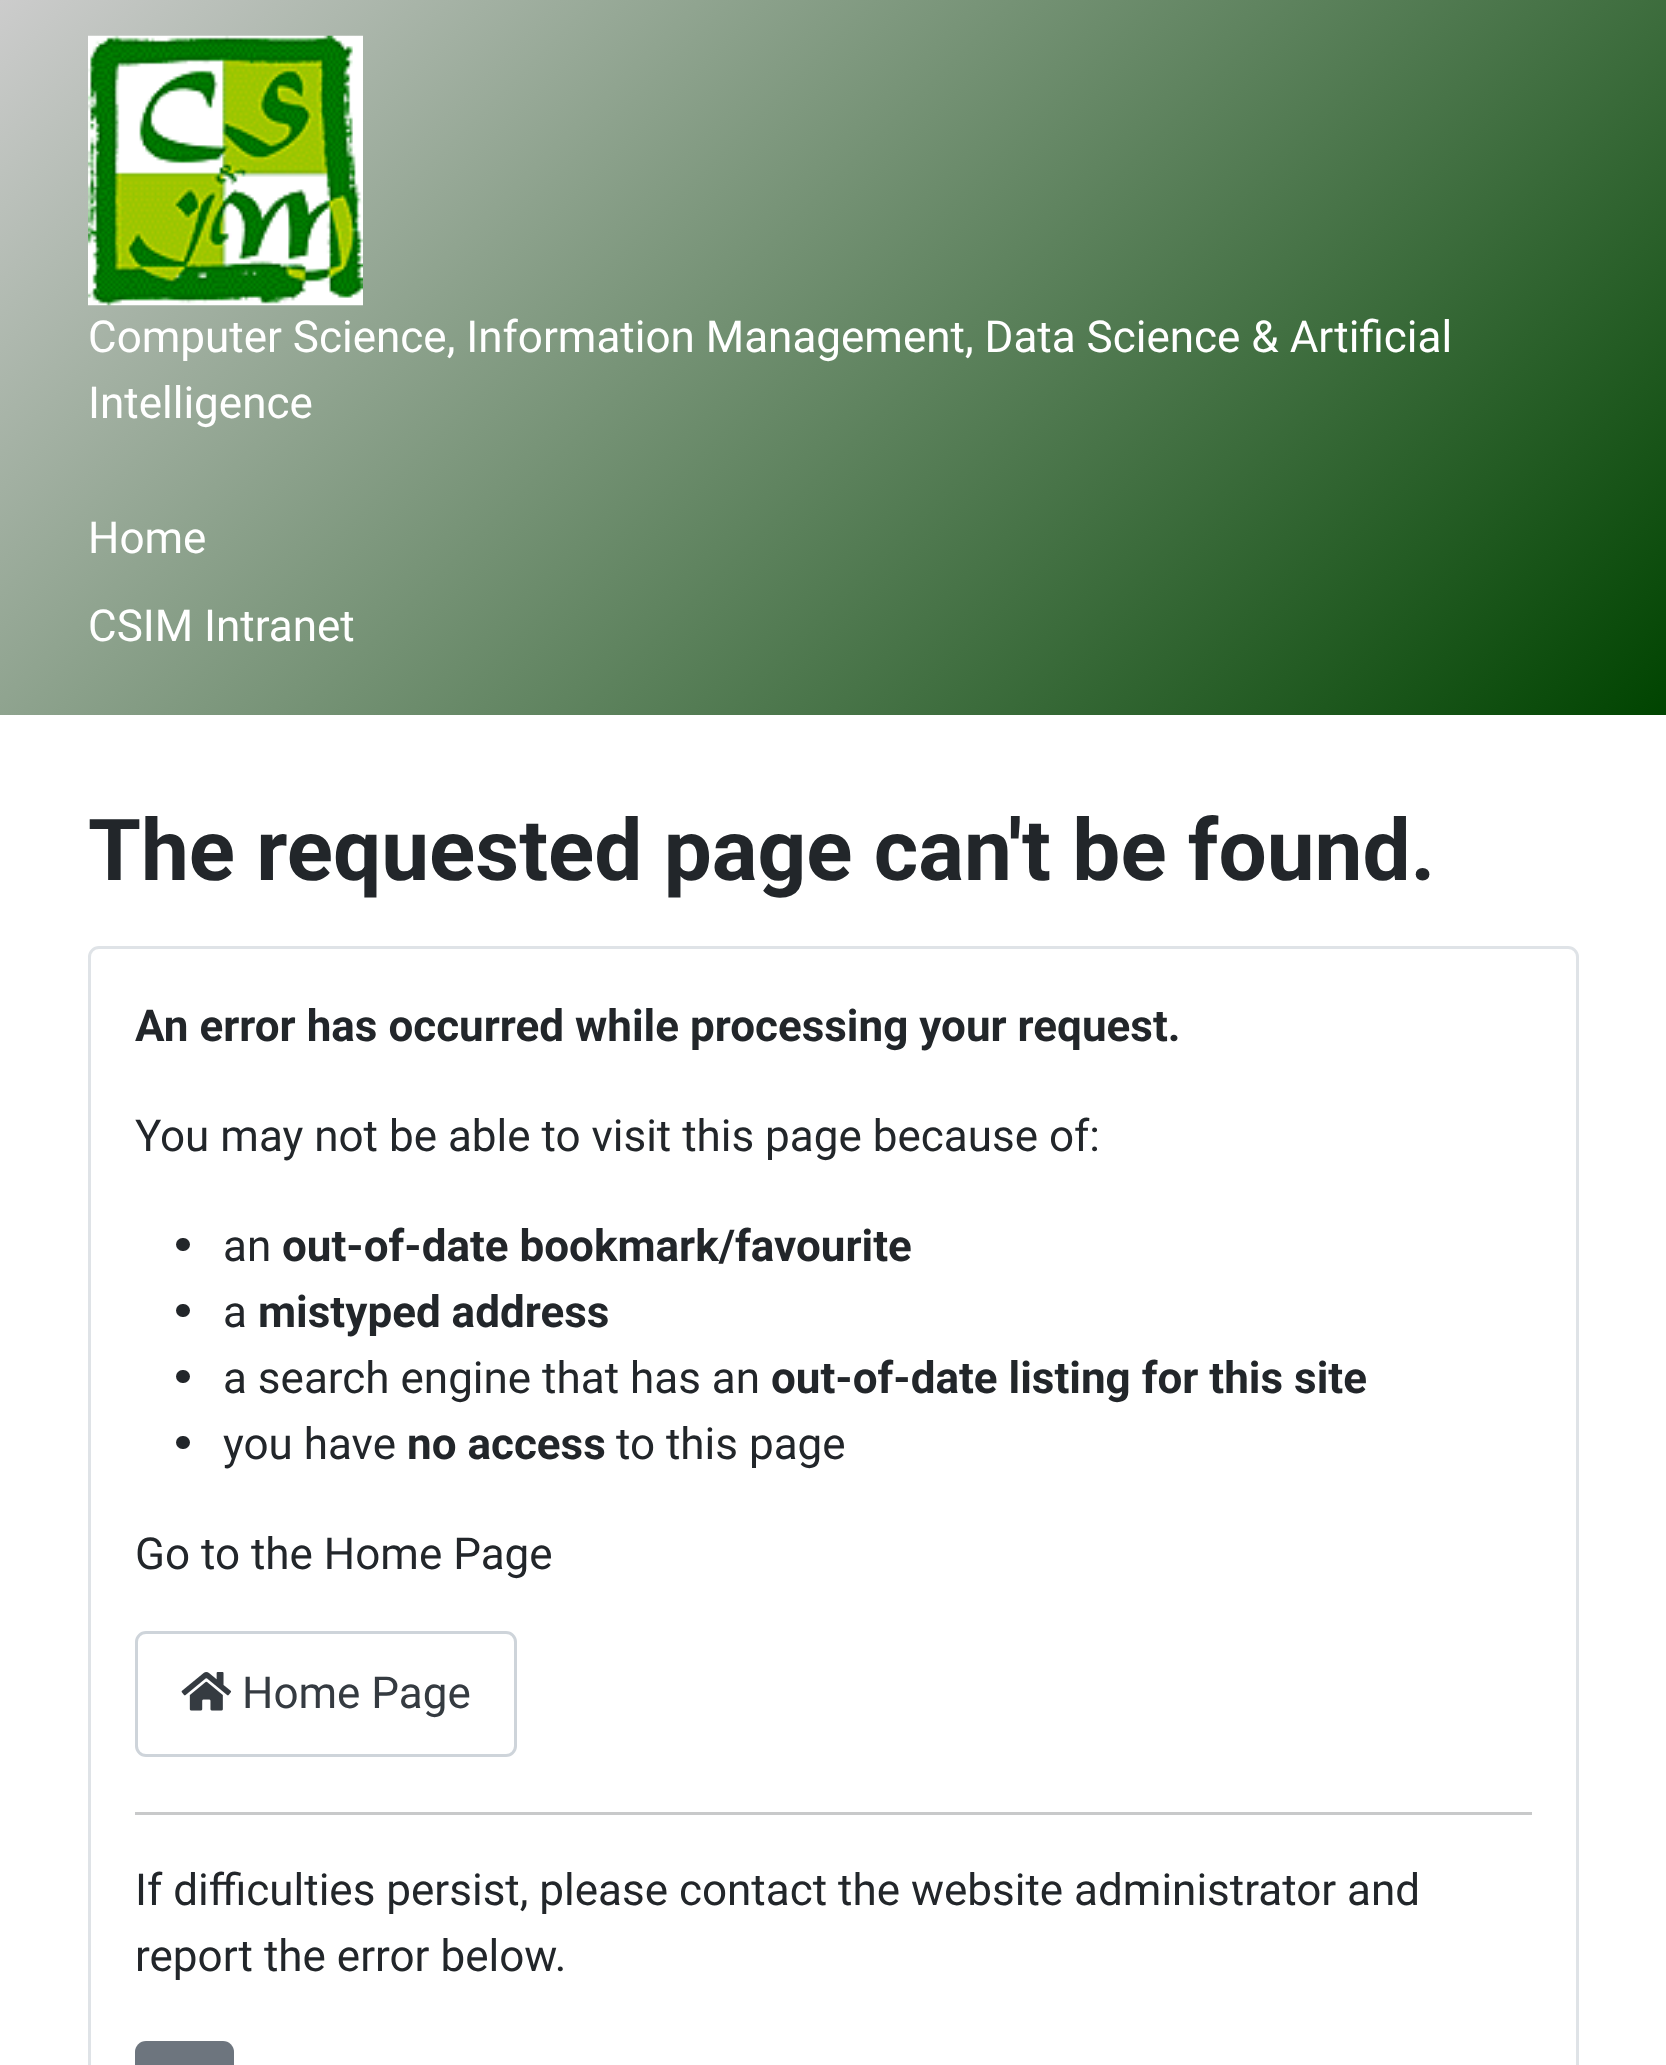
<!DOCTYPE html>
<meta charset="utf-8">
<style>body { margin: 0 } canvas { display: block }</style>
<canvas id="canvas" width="1666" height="2065"></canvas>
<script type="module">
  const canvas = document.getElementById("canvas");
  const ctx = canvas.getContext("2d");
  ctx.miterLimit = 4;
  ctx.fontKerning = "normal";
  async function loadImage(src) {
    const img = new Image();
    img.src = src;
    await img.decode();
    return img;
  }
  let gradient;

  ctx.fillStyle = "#ffffff";
  ctx.fillRect(0, 0, 1666, 2065);
  gradient = ctx.createLinearGradient(238, -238, 1429, 953);
  gradient.addColorStop(0, "#cccccc");
  gradient.addColorStop(1, "#004400");
  ctx.fillStyle = gradient;
  ctx.fillRect(0, 0, 1666, 715);
  ctx.drawImage(await loadImage("img1.png"), 88, 35, 275, 271);
  ctx.font = "44px Roboto";
  ctx.fillStyle = "#ffffff";
  ctx.fillText("Computer Science, Information Management, Data Science & Artificial", 88, 352);
  ctx.fillText("Intelligence", 88, 418);
  ctx.fillText("Home", 88, 553);
  ctx.fillText("CSIM Intranet", 88, 641);
  ctx.font = "bold 85.5px Roboto";
  ctx.fillStyle = "#22262a";
  ctx.fillText("The requested page can't be found.", 88, 880);
  ctx.beginPath();
  ctx.roundRect(89.5, 947.5, 1488, 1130, 9.5);
  ctx.strokeStyle = "#dfe3e7";
  ctx.lineWidth = 3;
  ctx.stroke();
  ctx.font = "bold 44px Roboto";
  ctx.fillText("An error has occurred while processing your request.", 135, 1041);
  ctx.font = "44px Roboto";
  ctx.fillText("You may not be able to visit this page because of:", 135, 1151);
  ctx.beginPath();
  ctx.roundRect(176, 1238, 14, 13, 6.5);
  ctx.fill();
  ctx.fillText("an", 223, 1261);
  ctx.font = "bold 44px Roboto";
  ctx.fillText("out-of-date bookmark/favourite", 282, 1261);
  ctx.beginPath();
  ctx.roundRect(176, 1304, 14, 13, 6.5);
  ctx.fill();
  ctx.font = "44px Roboto";
  ctx.fillText("a", 223, 1327);
  ctx.font = "bold 44px Roboto";
  ctx.fillText("mistyped address", 258, 1327);
  ctx.beginPath();
  ctx.roundRect(176, 1370, 14, 13, 6.5);
  ctx.fill();
  ctx.font = "44px Roboto";
  ctx.fillText("a search engine that has an", 223, 1393);
  ctx.font = "bold 44px Roboto";
  ctx.fillText("out-of-date listing for this site", 771, 1393);
  ctx.beginPath();
  ctx.roundRect(176, 1436, 14, 13, 6.5);
  ctx.fill();
  ctx.font = "44px Roboto";
  ctx.fillText("you have", 223, 1459);
  ctx.font = "bold 44px Roboto";
  ctx.fillText("no access", 407, 1459);
  ctx.font = "44px Roboto";
  ctx.fillText("to this page", 616, 1459);
  ctx.fillText("Go to the Home Page", 135, 1569);
  ctx.beginPath();
  ctx.roundRect(136.5, 1632.5, 379, 123, 9.5);
  ctx.strokeStyle = "#ced4da";
  ctx.stroke();
  ctx.drawImage(await loadImage("img2.png"), 181, 1672, 51, 39);
  ctx.fillStyle = "#353b41";
  ctx.fillText("Home Page", 242, 1708);
  ctx.fillStyle = "#c8c9ca";
  ctx.fillRect(135, 1812, 1397, 3);
  ctx.fillStyle = "#22262a";
  ctx.fillText("If difficulties persist, please contact the website administrator and", 135, 1905);
  ctx.fillText("report the error below.", 135, 1971);
  ctx.fillStyle = "#6d757e";
  ctx.beginPath();
  ctx.roundRect(135, 2041, 99, 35, 11);
  ctx.fill();
</script>
